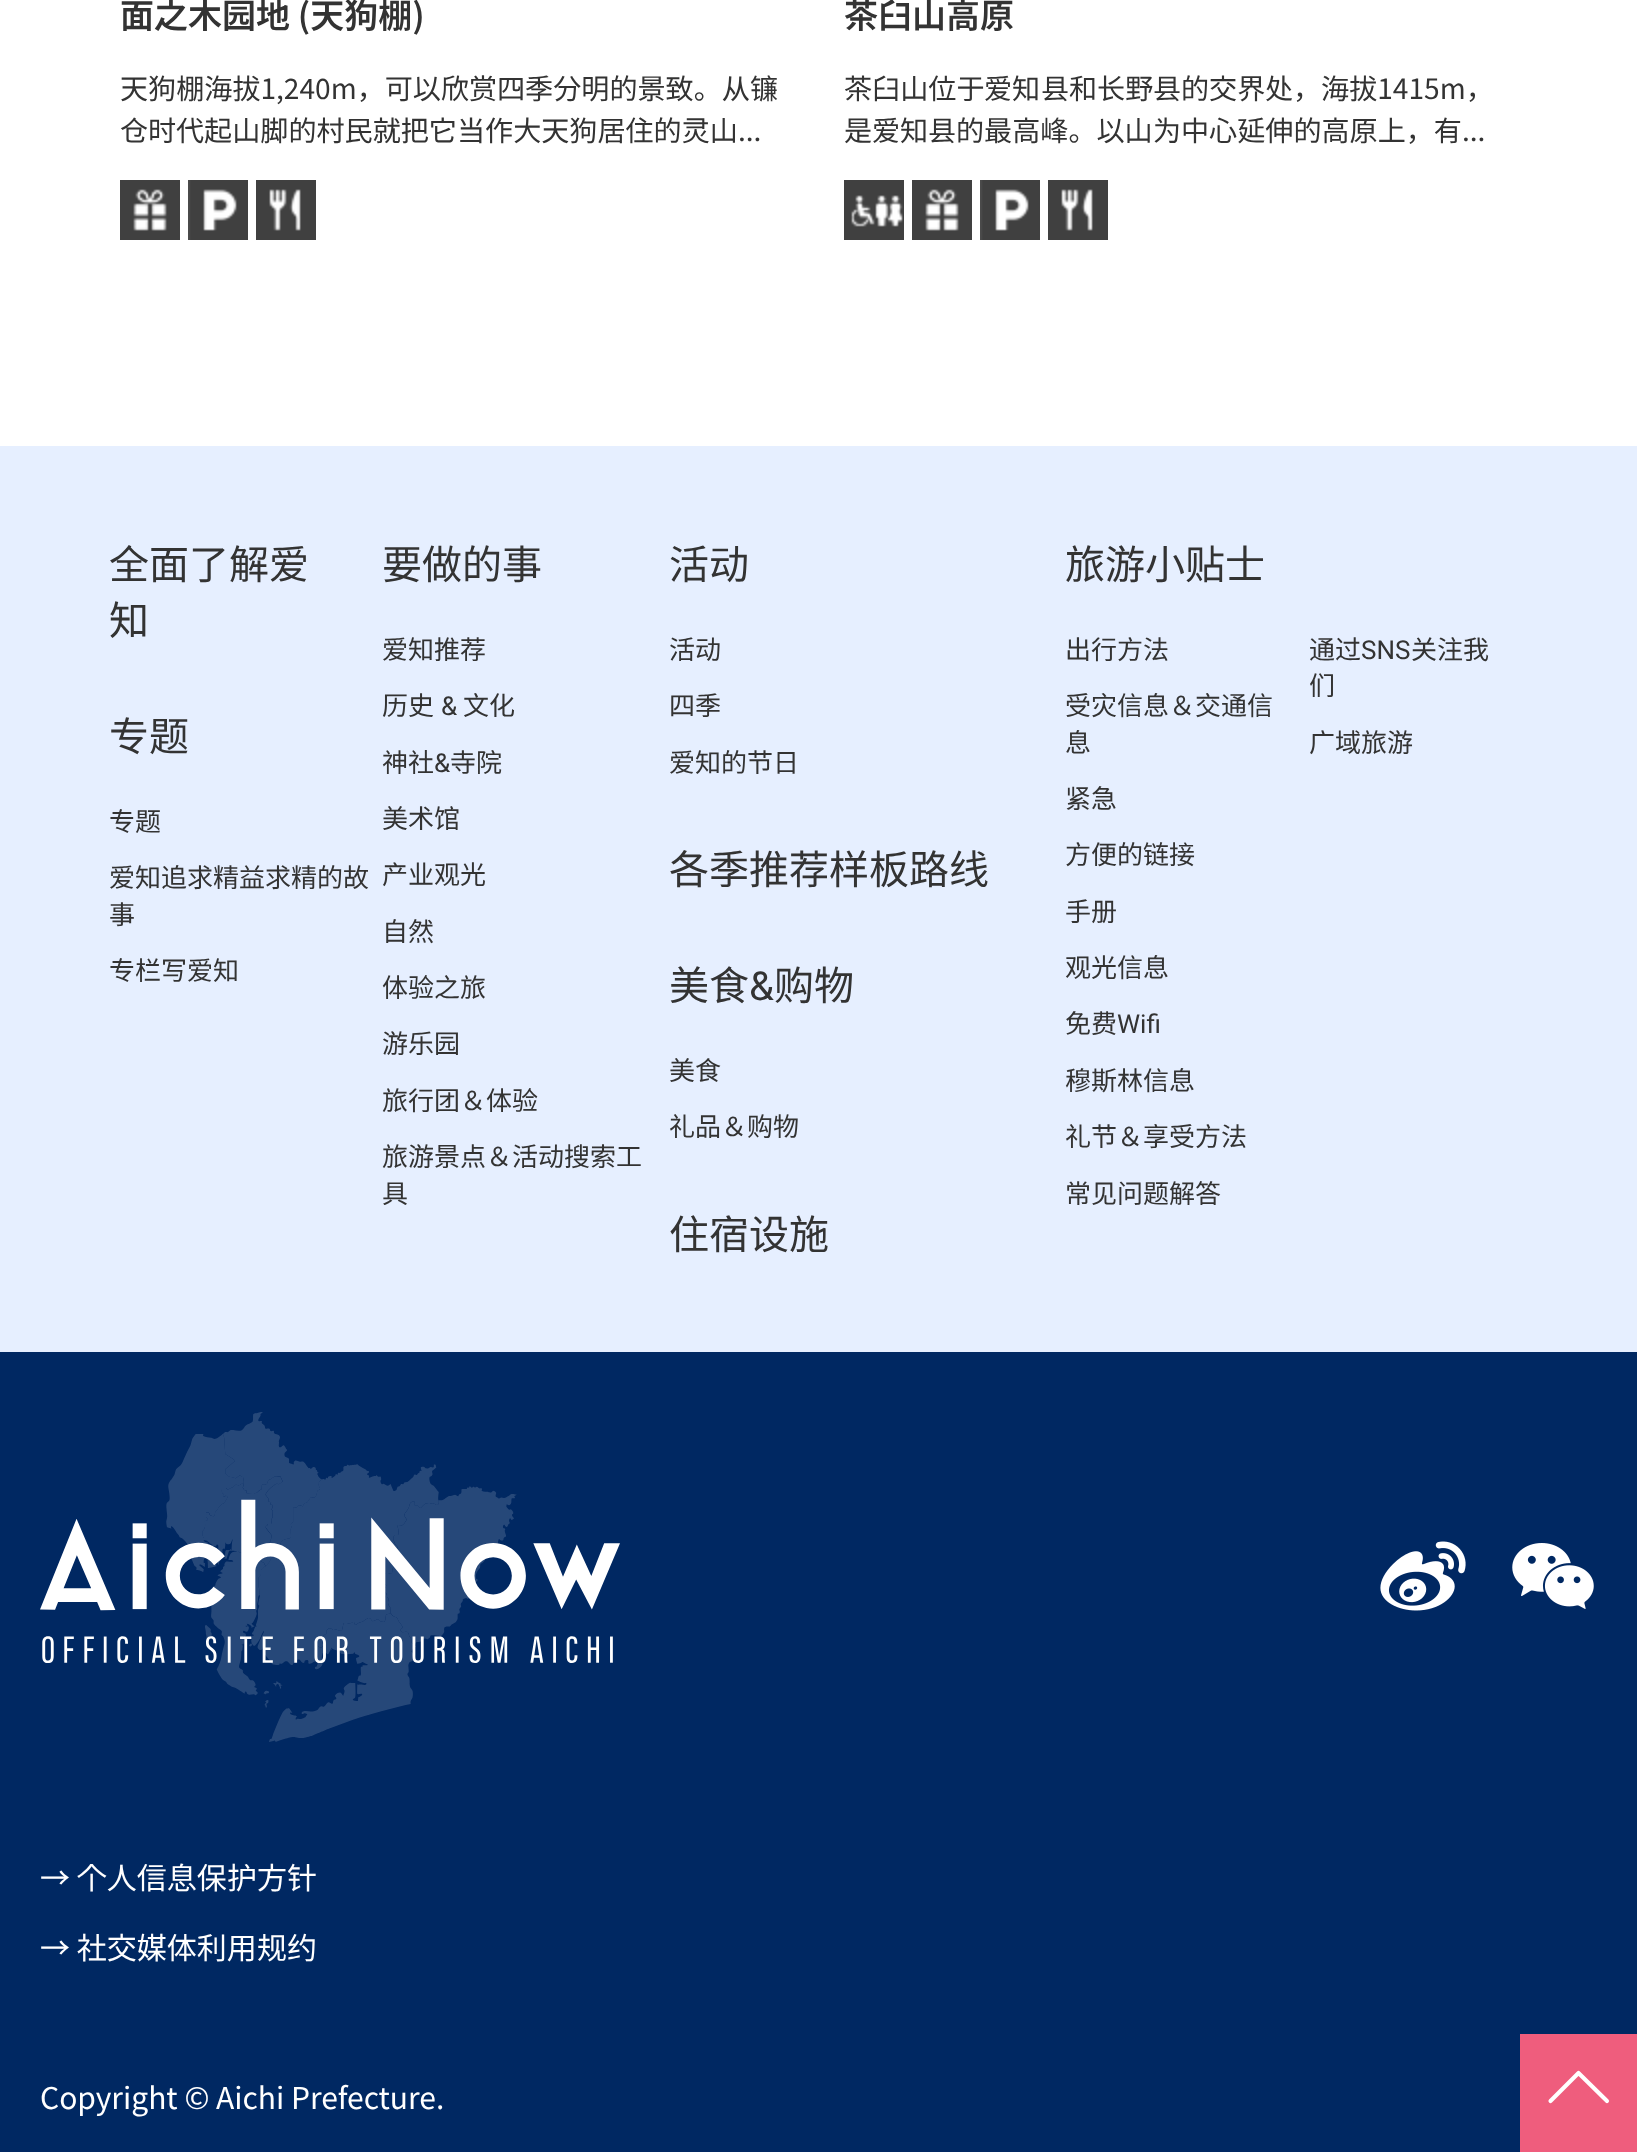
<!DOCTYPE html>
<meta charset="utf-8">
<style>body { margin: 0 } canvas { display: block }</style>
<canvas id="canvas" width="1637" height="2152"></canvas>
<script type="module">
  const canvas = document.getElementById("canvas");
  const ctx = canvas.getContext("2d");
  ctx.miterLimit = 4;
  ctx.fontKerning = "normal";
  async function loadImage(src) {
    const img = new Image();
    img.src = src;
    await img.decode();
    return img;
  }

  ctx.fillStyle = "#ffffff";
  ctx.fillRect(0, 0, 1637, 2152);
  ctx.font = "600 34px Noto Sans JP";
  ctx.fillStyle = "#333333";
  ctx.fillText("面之木园地 (天狗棚)", 120, 28);
  ctx.font = "28.1px Noto Sans JP";
  ctx.fillText("天狗棚海拔1,240m，可以欣", 120, 99);
  ctx.font = "28.1px Noto Sans CJK SC";
  ctx.fillText("赏", 469, 99);
  ctx.font = "28.1px Noto Sans JP";
  ctx.fillText("四季分明的景致。从", 497, 99);
  ctx.font = "28.1px Noto Sans CJK SC";
  ctx.fillText("镰", 750, 99);
  ctx.fillText("仓时", 120, 141);
  ctx.font = "28.1px Noto Sans JP";
  ctx.fillText("代起山脚的村民就把它当作大天狗居住的灵山...", 176, 141);
  ctx.drawImage(await loadImage("img1.png"), 120, 180, 60, 60);
  ctx.drawImage(await loadImage("img2.png"), 188, 180, 60, 60);
  ctx.drawImage(await loadImage("img3.png"), 256, 180, 60, 60);
  ctx.font = "600 34px Noto Sans JP";
  ctx.fillText("茶臼山高原", 844, 28);
  ctx.font = "28.1px Noto Sans JP";
  ctx.fillText("茶臼山位于", 844, 99);
  ctx.font = "28.1px Noto Sans CJK SC";
  ctx.fillText("爱", 984, 99);
  ctx.font = "28.1px Noto Sans JP";
  ctx.fillText("知", 1012, 99);
  ctx.font = "28.1px Noto Sans CJK SC";
  ctx.fillText("县", 1041, 99);
  ctx.font = "28.1px Noto Sans JP";
  ctx.fillText("和长野", 1069, 99);
  ctx.font = "28.1px Noto Sans CJK SC";
  ctx.fillText("县", 1153, 99);
  ctx.font = "28.1px Noto Sans JP";
  ctx.fillText("的交界", 1181, 99);
  ctx.font = "28.1px Noto Sans CJK SC";
  ctx.fillText("处", 1265, 99);
  ctx.font = "28.1px Noto Sans JP";
  ctx.fillText("，海拔1415m，", 1293, 99);
  ctx.fillText("是", 844, 141);
  ctx.font = "28.1px Noto Sans CJK SC";
  ctx.fillText("爱", 872, 141);
  ctx.font = "28.1px Noto Sans JP";
  ctx.fillText("知", 900, 141);
  ctx.font = "28.1px Noto Sans CJK SC";
  ctx.fillText("县", 928, 141);
  ctx.font = "28.1px Noto Sans JP";
  ctx.fillText("的最高峰。以山", 956, 141);
  ctx.font = "28.1px Noto Sans CJK SC";
  ctx.fillText("为", 1153, 141);
  ctx.font = "28.1px Noto Sans JP";
  ctx.fillText("中心延伸的高原上，有...", 1181, 141);
  ctx.drawImage(await loadImage("img4.png"), 844, 180, 60, 60);
  ctx.drawImage(await loadImage("img1.png"), 912, 180, 60, 60);
  ctx.drawImage(await loadImage("img2.png"), 980, 180, 60, 60);
  ctx.drawImage(await loadImage("img3.png"), 1048, 180, 60, 60);
  ctx.fillStyle = "#e6efff";
  ctx.fillRect(0, 446, 1637, 906);
  ctx.font = "40px Noto Sans CJK SC";
  ctx.fillStyle = "#333333";
  ctx.fillText("全面了解爱", 109, 579);
  ctx.fillText("知", 109, 635);
  ctx.fillText("专题", 109, 751);
  ctx.font = "26px Noto Sans CJK SC";
  ctx.fillText("专题", 109, 831);
  ctx.fillText("爱知追求精益求精的故", 109, 887);
  ctx.fillText("事", 109, 924);
  ctx.fillText("专栏写爱知", 109, 980);
  ctx.font = "40px Noto Sans CJK SC";
  ctx.fillText("要做的事", 382, 579);
  ctx.font = "26px Noto Sans CJK SC";
  ctx.fillText("爱知推荐", 382, 659);
  ctx.fillText("历史", 382, 715);
  ctx.font = "26px Roboto";
  ctx.fillText("&", 441, 715);
  ctx.font = "26px Noto Sans CJK SC";
  ctx.fillText("文化", 463, 715);
  ctx.fillText("神社", 382, 772);
  ctx.font = "26px Roboto";
  ctx.fillText("&", 434, 772);
  ctx.font = "26px Noto Sans CJK SC";
  ctx.fillText("寺院", 450, 772);
  ctx.fillText("美术馆", 382, 828);
  ctx.fillText("产业观光", 382, 884);
  ctx.fillText("自然", 382, 941);
  ctx.fillText("体验之旅", 382, 997);
  ctx.fillText("游乐园", 382, 1053);
  ctx.fillText("旅行团＆体验", 382, 1110);
  ctx.fillText("旅游景点＆活动搜索工", 382, 1166);
  ctx.fillText("具", 382, 1203);
  ctx.font = "40px Noto Sans CJK SC";
  ctx.fillText("活动", 669, 579);
  ctx.font = "26px Noto Sans CJK SC";
  ctx.fillText("活动", 669, 659);
  ctx.fillText("四季", 669, 715);
  ctx.fillText("爱知的节日", 669, 772);
  ctx.font = "40px Noto Sans CJK SC";
  ctx.fillText("各季推荐样板路线", 669, 884);
  ctx.fillText("美食", 669, 1000);
  ctx.font = "40px Roboto";
  ctx.fillText("&", 749, 1000);
  ctx.font = "40px Noto Sans CJK SC";
  ctx.fillText("购物", 774, 1000);
  ctx.font = "26px Noto Sans CJK SC";
  ctx.fillText("美食", 669, 1080);
  ctx.fillText("礼品＆购物", 669, 1136);
  ctx.font = "40px Noto Sans CJK SC";
  ctx.fillText("住宿设施", 669, 1249);
  ctx.fillText("旅游小贴士", 1065, 579);
  ctx.font = "26px Noto Sans CJK SC";
  ctx.fillText("出行方法", 1065, 659);
  ctx.fillText("受灾信息＆交通信", 1065, 715);
  ctx.fillText("息", 1065, 752);
  ctx.fillText("紧急", 1065, 808);
  ctx.fillText("方便的链接", 1065, 864);
  ctx.fillText("手册", 1065, 921);
  ctx.fillText("观光信息", 1065, 977);
  ctx.fillText("免费", 1065, 1033);
  ctx.font = "26px Roboto";
  ctx.fillText("Wifi", 1117, 1033);
  ctx.font = "26px Noto Sans CJK SC";
  ctx.fillText("穆斯林信息", 1065, 1090);
  ctx.fillText("礼节＆享受方法", 1065, 1146);
  ctx.fillText("常见问题解答", 1065, 1203);
  ctx.fillText("通过", 1309, 659);
  ctx.font = "26px Roboto";
  ctx.fillText("SNS", 1361, 659);
  ctx.font = "26px Noto Sans CJK SC";
  ctx.fillText("关注我", 1411, 659);
  ctx.fillText("们", 1309, 695);
  ctx.fillText("广域旅游", 1309, 752);
  ctx.fillStyle = "#002862";
  ctx.fillRect(0, 1352, 1637, 800);
  ctx.drawImage(await loadImage("img5.png"), 40, 1412, 580, 330);
  ctx.drawImage(await loadImage("img6.png"), 1380, 1541, 86, 70);
  ctx.drawImage(await loadImage("img7.png"), 1512, 1543, 82, 66);
  ctx.font = "30px Noto Sans JP";
  ctx.fillStyle = "#ffffff";
  ctx.fillText("→ 个人信息保", 40, 1889);
  ctx.font = "30px Noto Sans CJK SC";
  ctx.fillText("护", 227, 1889);
  ctx.font = "30px Noto Sans JP";
  ctx.fillText("方", 257, 1889);
  ctx.font = "30px Noto Sans CJK SC";
  ctx.fillText("针", 287, 1889);
  ctx.font = "30px Noto Sans JP";
  ctx.fillText("→ 社交媒体利用", 40, 1959);
  ctx.font = "30px Noto Sans CJK SC";
  ctx.fillText("规约", 257, 1959);
  ctx.font = "30px Noto Sans JP";
  ctx.fillText("Copyright © Aichi Prefecture.", 40, 2109);
  ctx.fillStyle = "#ef5d7d";
  ctx.fillRect(1520, 2034, 117, 118);
  ctx.beginPath();
  ctx.moveTo(1607, 2101);
  ctx.lineTo(1578.5, 2073);
  ctx.lineTo(1550.5, 2101);
  ctx.strokeStyle = "#ffffff";
  ctx.lineWidth = 4.1;
  ctx.lineCap = "round";
  ctx.lineJoin = "round";
  ctx.stroke();
</script>
